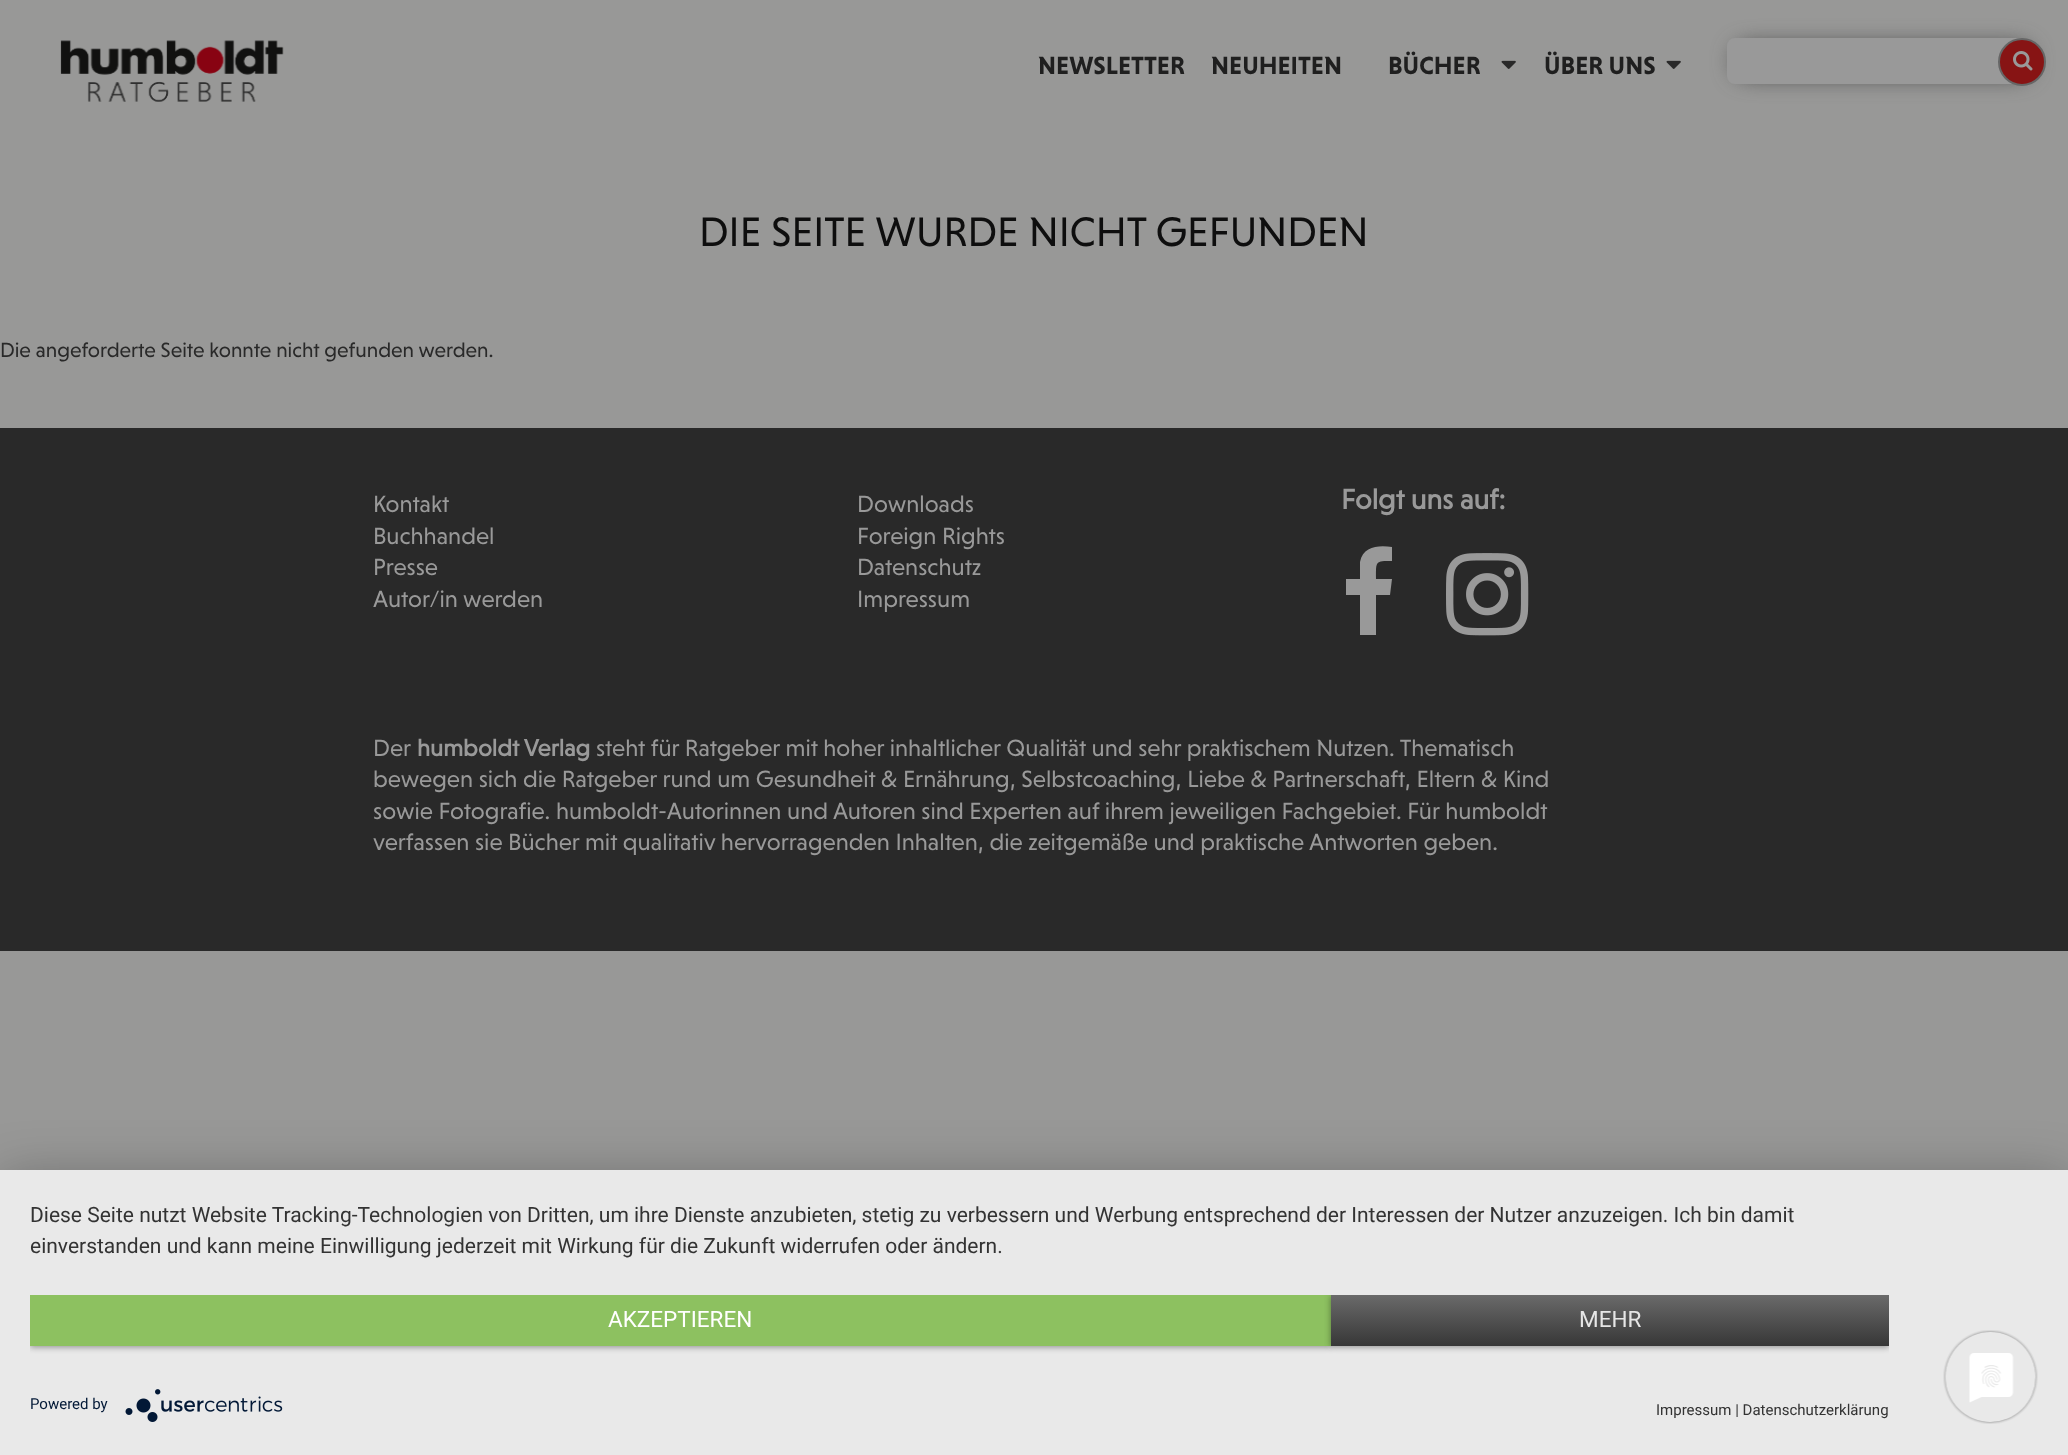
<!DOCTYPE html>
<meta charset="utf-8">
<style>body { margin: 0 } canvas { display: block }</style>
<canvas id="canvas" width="2068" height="1455"></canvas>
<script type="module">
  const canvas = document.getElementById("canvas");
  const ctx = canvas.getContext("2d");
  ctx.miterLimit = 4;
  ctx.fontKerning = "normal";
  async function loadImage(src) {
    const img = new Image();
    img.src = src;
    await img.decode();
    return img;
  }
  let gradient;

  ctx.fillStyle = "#989897";
  ctx.fillRect(0, 0, 2068, 1455);
  ctx.drawImage(await loadImage("img1.png"), 60, 40, 224, 62);
  ctx.font = "25.25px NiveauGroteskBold";
  ctx.fillStyle = "#1f1f1f";
  ctx.fillText("NEWSLETTER", 1038, 74);
  ctx.fillText("NEUHEITEN", 1211, 74);
  ctx.fillText("BÜCHER", 1388, 74);
  ctx.drawImage(await loadImage("img2.png"), 1501, 60, 15, 9);
  ctx.fillText("ÜBER UNS", 1544, 74);
  ctx.drawImage(await loadImage("img2.png"), 1666, 60, 15, 9);
  ctx.fillStyle = "#3d3d3d";
  ctx.filter = "blur(11px)";
  ctx.beginPath();
  ctx.roundRect(1734, 45, 297, 32, 15);
  ctx.fill();
  ctx.filter = "none";
  ctx.fillStyle = "#999999";
  ctx.beginPath();
  ctx.roundRect(1727, 38, 312, 46, [8, 23, 23, 8]);
  ctx.fill();
  ctx.fillStyle = "#871414";
  ctx.beginPath();
  ctx.arc(2022, 62, 23, 0, Math.PI * 2);
  ctx.fill();
  ctx.strokeStyle = "#666666";
  ctx.lineWidth = 2;
  ctx.stroke();
  ctx.drawImage(await loadImage("img3.png"), 2013, 51, 20, 20);
  ctx.font = "42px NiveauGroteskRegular";
  ctx.fillStyle = "#0e0e0e";
  ctx.fillText("DIE SEITE WURDE NICHT GEFUNDEN", 699, 246);
  ctx.font = "21px NiveauGroteskRegular";
  ctx.fillStyle = "#292929";
  ctx.fillText("Die angeforderte Seite konnte nicht gefunden werden.", 0, 357);
  ctx.fillRect(0, 428, 2068, 523);
  ctx.font = "24px NiveauGroteskRegular";
  ctx.fillStyle = "#999999";
  ctx.fillText("Kontakt", 373, 512);
  ctx.fillText("Buchhandel", 373, 544);
  ctx.fillText("Presse", 373, 575);
  ctx.fillText("Autor/in werden", 373, 607);
  ctx.fillText("Downloads", 857, 512);
  ctx.fillText("Foreign Rights", 857, 544);
  ctx.fillText("Datenschutz", 857, 575);
  ctx.fillText("Impressum", 857, 607);
  ctx.font = "bold 28.75px NiveauGroteskRegular";
  ctx.fillText("Folgt uns auf:", 1341, 509);
  ctx.beginPath();
  ctx.moveTo(1392, 547);
  ctx.lineTo(1392, 561);
  ctx.bezierCurveTo(1375, 561, 1376, 561, 1376, 579);
  ctx.lineTo(1392, 579);
  ctx.lineTo(1390, 595);
  ctx.lineTo(1376, 595);
  ctx.lineTo(1376, 635);
  ctx.lineTo(1360, 635);
  ctx.lineTo(1360, 595);
  ctx.lineTo(1346, 595);
  ctx.lineTo(1346, 579);
  ctx.lineTo(1360, 579);
  ctx.lineTo(1360, 562);
  ctx.bezierCurveTo(1363, 546, 1379, 545, 1392, 547);
  ctx.closePath();
  ctx.fill();
  ctx.drawImage(await loadImage("img4.png"), 1446, 553, 83, 83);
  ctx.font = "24px NiveauGroteskRegular";
  ctx.fillText("Der", 373, 756);
  ctx.font = "bold 24px NiveauGroteskRegular";
  ctx.fillText("humboldt Verlag", 417, 756);
  ctx.font = "24px NiveauGroteskRegular";
  ctx.fillText("steht für Ratgeber mit hoher inhaltlicher Qualität und sehr praktischem Nutzen. Thematisch", 596, 756);
  ctx.fillText("bewegen sich die Ratgeber rund um Gesundheit & Ernährung, Selbstcoaching, Liebe & Partnerschaft, Eltern & Kind", 373, 787);
  ctx.fillText("sowie Fotografie. humboldt-Autorinnen und Autoren sind Experten auf ihrem jeweiligen Fachgebiet. Für humboldt", 373, 819);
  ctx.fillText("verfassen sie Bücher mit qualitativ hervorragenden Inhalten, die zeitgemäße und praktische Antworten geben.", 373, 850);
  ctx.fillStyle = "rgba(0, 0, 0, 0.3)";
  ctx.filter = "blur(27px)";
  ctx.beginPath();
  ctx.rect(0, 1179, 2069, 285);
  ctx.fill();
  ctx.filter = "none";
  ctx.fillStyle = "#e9e9e9";
  ctx.fillRect(0, 1170, 2068, 285);
  ctx.font = "21px Roboto";
  ctx.fillStyle = "#333333";
  ctx.fillText("Diese Seite nutzt Website Tracking-Technologien von Dritten, um ihre Dienste anzubieten, stetig zu verbessern und Werbung entsprechend der Interessen der Nutzer anzuzeigen. Ich bin damit", 30, 1222);
  ctx.fillText("einverstanden und kann meine Einwilligung jederzeit mit Wirkung für die Zukunft widerrufen oder ändern.", 30, 1253);
  ctx.save();
  ctx.beginPath();
  ctx.rect(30, 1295, 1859, 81);
  ctx.clip();
  ctx.fillStyle = "rgba(0, 0, 0, 0.4)";
  ctx.filter = "blur(3px)";
  ctx.beginPath();
  ctx.rect(30, 1296, 1301, 51);
  ctx.fill();
  ctx.filter = "none";
  ctx.restore();
  ctx.fillStyle = "#8dc160";
  ctx.fillRect(30, 1295, 1301, 51);
  ctx.font = "22.5px Roboto";
  ctx.fillStyle = "#ffffff";
  ctx.fillText("AKZEPTIEREN", 608, 1327);
  ctx.save();
  ctx.beginPath();
  ctx.rect(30, 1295, 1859, 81);
  ctx.clip();
  ctx.fillStyle = "rgba(0, 0, 0, 0.4)";
  ctx.filter = "blur(3px)";
  ctx.beginPath();
  ctx.rect(1331, 1296, 558, 51);
  ctx.fill();
  ctx.filter = "none";
  ctx.restore();
  gradient = ctx.createLinearGradient(1610, 1295, 1610, 1346);
  gradient.addColorStop(0, "#6a6a6a");
  gradient.addColorStop(1, "#373737");
  ctx.fillStyle = gradient;
  ctx.fillRect(1331, 1295, 558, 51);
  ctx.fillStyle = "#e6e6e6";
  ctx.fillText("MEHR", 1579, 1327);
  ctx.font = "15px Roboto";
  ctx.fillStyle = "#021836";
  ctx.fillText("Powered by", 30, 1409);
  ctx.drawImage(await loadImage("img5.png"), 125, 1389, 158, 33);
  ctx.fillStyle = "#333333";
  ctx.fillText("Impressum | Datenschutzerklärung", 1656, 1415);
  ctx.drawImage(await loadImage("img6.png"), 1943, 1330, 95, 94);
</script>
